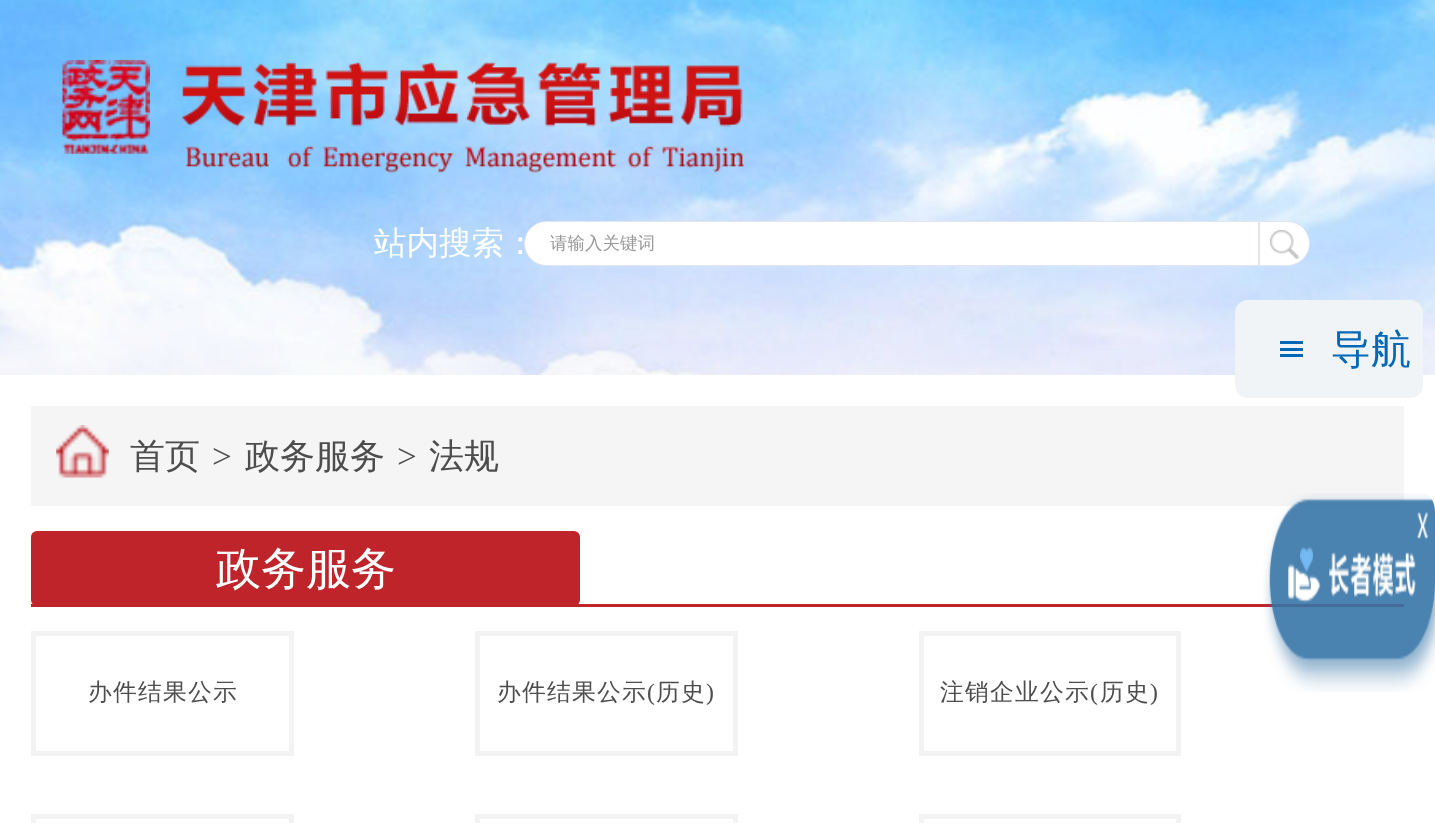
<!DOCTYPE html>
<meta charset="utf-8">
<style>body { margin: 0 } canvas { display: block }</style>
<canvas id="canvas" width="1435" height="823"></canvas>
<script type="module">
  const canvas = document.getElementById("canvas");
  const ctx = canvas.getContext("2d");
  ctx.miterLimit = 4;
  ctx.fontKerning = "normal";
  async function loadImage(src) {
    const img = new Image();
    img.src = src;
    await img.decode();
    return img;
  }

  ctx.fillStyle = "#ffffff";
  ctx.fillRect(0, 0, 1435, 823);
  ctx.drawImage(await loadImage("img1.png"), 0, 0, 1435, 375);
  ctx.drawImage(await loadImage("img2.png"), 62, 60, 88, 94);
  ctx.drawImage(await loadImage("img3.png"), 181, 62, 563, 111);
  ctx.font = "500 32.5px WenQuanYi Zen Hei";
  ctx.fillText("站内搜索：", 374, 254);
  ctx.beginPath();
  ctx.roundRect(524.5, 221.5, 734, 44, [22, 0, 0, 22]);
  ctx.fill();
  ctx.strokeStyle = "#e3e4ee";
  ctx.stroke();
  ctx.font = "500 17.5px WenQuanYi Zen Hei";
  ctx.fillStyle = "#999999";
  ctx.fillText("请输入关键词", 550, 249);
  ctx.fillStyle = "#ffffff";
  ctx.beginPath();
  ctx.roundRect(1259.5, 221.5, 50, 44, [0, 22, 22, 0]);
  ctx.fill();
  ctx.stroke();
  ctx.drawImage(await loadImage("img4.png"), 1270, 230, 29, 29);
  ctx.fillStyle = "#f0f4f7";
  ctx.beginPath();
  ctx.roundRect(1235, 300, 188, 98, 13);
  ctx.fill();
  ctx.fillStyle = "#0168b7";
  ctx.fillRect(1280, 348, 23, 3);
  ctx.fillRect(1280, 341, 23, 3);
  ctx.fillRect(1280, 354, 23, 3);
  ctx.font = "500 40px WenQuanYi Zen Hei";
  ctx.fillText("导航", 1331, 363);
  ctx.fillStyle = "#f5f5f5";
  ctx.fillRect(31, 406, 1373, 100);
  ctx.drawImage(await loadImage("img5.png"), 56, 425, 53, 53);
  ctx.font = "500 35px WenQuanYi Zen Hei";
  ctx.fillStyle = "#4e4d4d";
  ctx.fillText("首页", 130, 468);
  ctx.font = "35px Liberation Serif";
  ctx.fillText(">", 212, 468);
  ctx.font = "500 35px WenQuanYi Zen Hei";
  ctx.fillText("政务服务", 245, 468);
  ctx.font = "35px Liberation Serif";
  ctx.fillText(">", 397, 468);
  ctx.font = "500 35px WenQuanYi Zen Hei";
  ctx.fillText("法规", 429, 468);
  ctx.fillStyle = "#bf242a";
  ctx.fillRect(31, 604, 1373, 3);
  ctx.beginPath();
  ctx.roundRect(31, 531, 549, 75, 6);
  ctx.fill();
  ctx.font = "500 45px WenQuanYi Zen Hei";
  ctx.fillStyle = "#ffffff";
  ctx.fillText("政务服务", 216, 584);
  ctx.strokeStyle = "#f3f3f3";
  ctx.lineWidth = 5;
  ctx.strokeRect(33.5, 633.5, 258, 120);
  ctx.letterSpacing = "1.25px";
  ctx.font = "500 23.75px WenQuanYi Zen Hei";
  ctx.fillStyle = "#4e4d4d";
  ctx.fillText("办件结果公示", 88, 700);
  ctx.strokeRect(477.5, 633.5, 258, 120);
  ctx.fillText("办件结果公示", 497, 700);
  ctx.font = "23.75px Liberation Serif";
  ctx.fillText("(", 647, 700);
  ctx.font = "500 23.75px WenQuanYi Zen Hei";
  ctx.fillText("历史", 656, 700);
  ctx.font = "23.75px Liberation Serif";
  ctx.fillText(")", 706, 700);
  ctx.strokeRect(921.5, 633.5, 257, 120);
  ctx.font = "500 23.75px WenQuanYi Zen Hei";
  ctx.fillText("注销企业公示", 940, 700);
  ctx.font = "23.75px Liberation Serif";
  ctx.fillText("(", 1090, 700);
  ctx.font = "500 23.75px WenQuanYi Zen Hei";
  ctx.fillText("历史", 1100, 700);
  ctx.font = "23.75px Liberation Serif";
  ctx.fillText(")", 1150, 700);
  ctx.strokeRect(33.5, 816.5, 258, 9);
  ctx.strokeRect(477.5, 816.5, 258, 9);
  ctx.strokeRect(921.5, 816.5, 257, 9);
  ctx.drawImage(await loadImage("img6.png"), 1263, 493, 172, 199);
</script>
